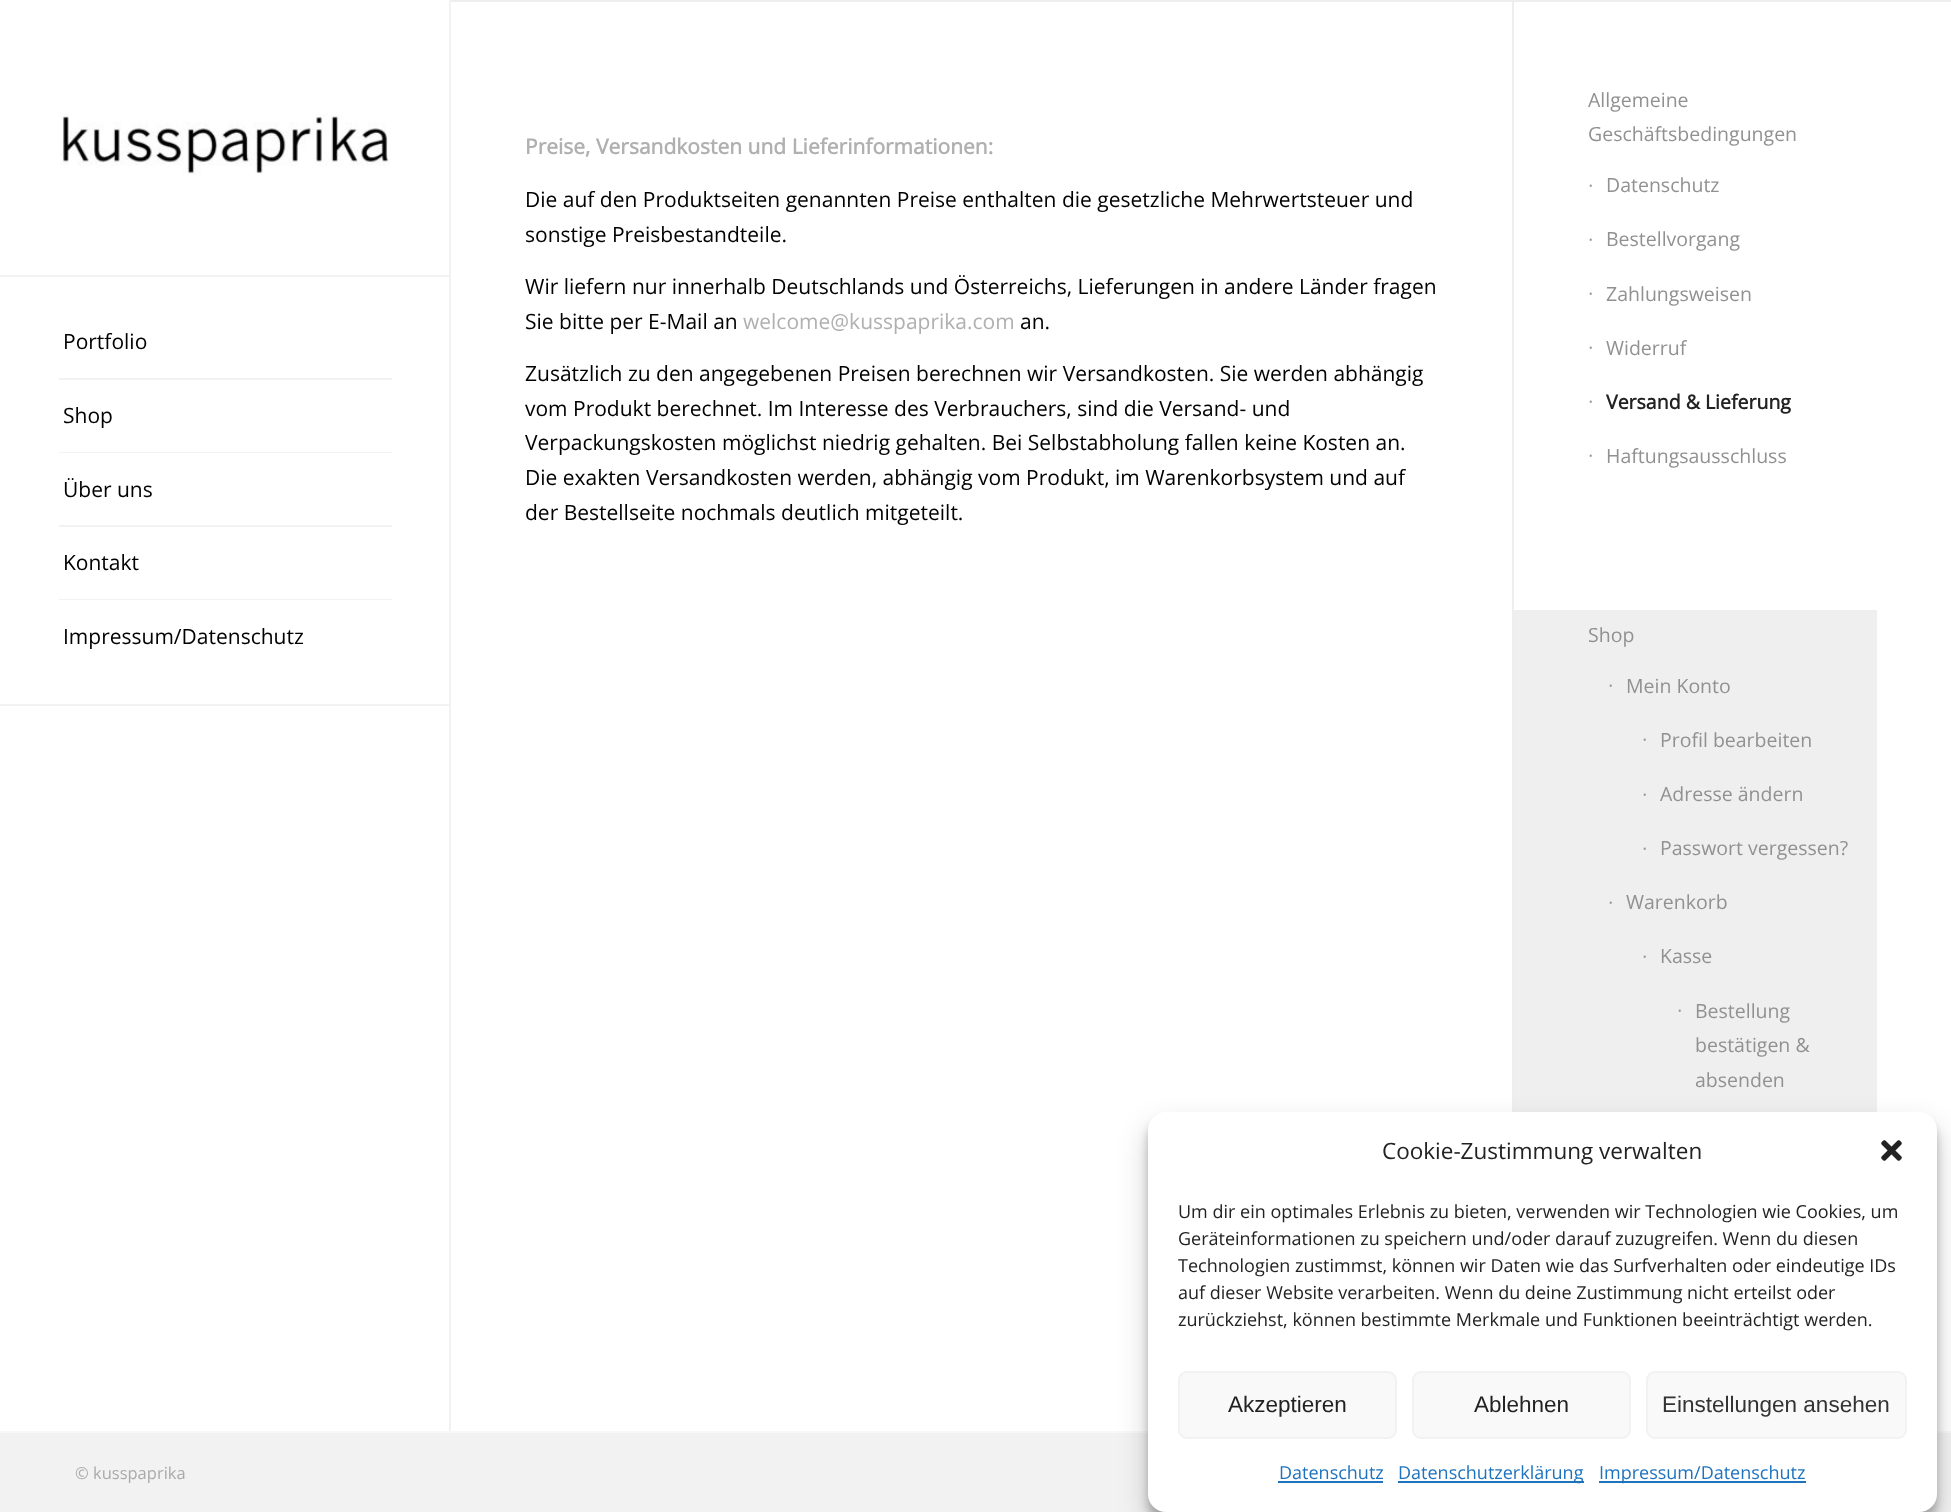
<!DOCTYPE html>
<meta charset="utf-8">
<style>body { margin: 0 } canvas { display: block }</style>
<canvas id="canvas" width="1951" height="1512"></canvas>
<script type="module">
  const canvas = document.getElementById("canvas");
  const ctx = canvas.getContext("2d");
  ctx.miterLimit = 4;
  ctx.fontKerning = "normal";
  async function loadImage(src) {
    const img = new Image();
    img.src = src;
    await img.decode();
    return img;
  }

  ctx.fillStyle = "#ffffff";
  ctx.fillRect(0, 0, 1951, 1512);
  ctx.fillStyle = "#eeeeee";
  ctx.fillRect(450, 0, 1501, 2);
  ctx.font = "bold 21px Open Sans";
  ctx.fillStyle = "#b0b0b0";
  ctx.fillText("Preise, Versandkosten und Lieferinformationen:", 525, 154);
  ctx.font = "21px Open Sans";
  ctx.fillStyle = "#000000";
  ctx.fillText("Die auf den Produktseiten genannten Preise enthalten die gesetzliche Mehrwertsteuer und", 525, 207);
  ctx.fillText("sonstige Preisbestandteile.", 525, 242);
  ctx.fillText("Wir liefern nur innerhalb Deutschlands und Österreichs, Lieferungen in andere Länder fragen", 525, 294);
  ctx.fillText("Sie bitte per E-Mail an", 525, 329);
  ctx.fillStyle = "#b0b0b0";
  ctx.fillText("welcome@kusspaprika.com", 743, 329);
  ctx.fillStyle = "#000000";
  ctx.fillText("an.", 1020, 329);
  ctx.fillText("Zusätzlich zu den angegebenen Preisen berechnen wir Versandkosten. Sie werden abhängig", 525, 381);
  ctx.fillText("vom Produkt berechnet. Im Interesse des Verbrauchers, sind die Versand- und", 525, 416);
  ctx.fillText("Verpackungskosten möglichst niedrig gehalten. Bei Selbstabholung fallen keine Kosten an.", 525, 450);
  ctx.fillText("Die exakten Versandkosten werden, abhängig vom Produkt, im Warenkorbsystem und auf", 525, 485);
  ctx.fillText("der Bestellseite nochmals deutlich mitgeteilt.", 525, 520);
  ctx.fillStyle = "#eeeeee";
  ctx.fillRect(1512, 2, 2, 1110);
  ctx.font = "19.5px Open Sans";
  ctx.fillStyle = "#919191";
  ctx.fillText("Allgemeine", 1588, 107);
  ctx.fillText("Geschäftsbedingungen", 1588, 141);
  ctx.font = "19.5px Liberation Sans";
  ctx.fillText("∙", 1588, 191);
  ctx.font = "19.5px Open Sans";
  ctx.fillText("Datenschutz", 1606, 192);
  ctx.font = "19.5px Liberation Sans";
  ctx.fillText("∙", 1588, 245);
  ctx.font = "19.5px Open Sans";
  ctx.fillText("Bestellvorgang", 1606, 246);
  ctx.font = "19.5px Liberation Sans";
  ctx.fillText("∙", 1588, 299);
  ctx.font = "19.5px Open Sans";
  ctx.fillText("Zahlungsweisen", 1606, 301);
  ctx.font = "19.5px Liberation Sans";
  ctx.fillText("∙", 1588, 353);
  ctx.font = "19.5px Open Sans";
  ctx.fillText("Widerruf", 1606, 355);
  ctx.font = "19.5px Liberation Sans";
  ctx.fillText("∙", 1588, 407);
  ctx.font = "bold 19.5px Open Sans";
  ctx.fillStyle = "#222222";
  ctx.fillText("Versand & Lieferung", 1606, 409);
  ctx.font = "19.5px Liberation Sans";
  ctx.fillStyle = "#919191";
  ctx.fillText("∙", 1588, 461);
  ctx.font = "19.5px Open Sans";
  ctx.fillText("Haftungsausschluss", 1606, 463);
  ctx.save();
  ctx.beginPath();
  ctx.rect(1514, 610, 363, 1);
  ctx.clip();
  ctx.fillStyle = "rgba(0, 0, 0, 0.2)";
  ctx.filter = "blur(1px)";
  ctx.beginPath();
  ctx.rect(1512, 611, 365, 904);
  ctx.fill();
  ctx.filter = "none";
  ctx.restore();
  ctx.fillStyle = "#efefef";
  ctx.fillRect(1514, 611, 363, 501);
  ctx.fillStyle = "#919191";
  ctx.fillText("Shop", 1588, 642);
  ctx.font = "19.5px Liberation Sans";
  ctx.fillText("∙", 1608, 691);
  ctx.font = "19.5px Open Sans";
  ctx.fillText("Mein Konto", 1626, 693);
  ctx.font = "19.5px Liberation Sans";
  ctx.fillText("∙", 1642, 745);
  ctx.font = "19.5px Open Sans";
  ctx.fillText("Profil bearbeiten", 1660, 747);
  ctx.font = "19.5px Liberation Sans";
  ctx.fillText("∙", 1642, 800);
  ctx.font = "19.5px Open Sans";
  ctx.fillText("Adresse ändern", 1660, 801);
  ctx.font = "19.5px Liberation Sans";
  ctx.fillText("∙", 1642, 854);
  ctx.font = "19.5px Open Sans";
  ctx.fillText("Passwort vergessen?", 1660, 855);
  ctx.font = "19.5px Liberation Sans";
  ctx.fillText("∙", 1608, 908);
  ctx.font = "19.5px Open Sans";
  ctx.fillText("Warenkorb", 1626, 909);
  ctx.font = "19.5px Liberation Sans";
  ctx.fillText("∙", 1642, 962);
  ctx.font = "19.5px Open Sans";
  ctx.fillText("Kasse", 1660, 963);
  ctx.font = "19.5px Liberation Sans";
  ctx.fillText("∙", 1677, 1016);
  ctx.font = "19.5px Open Sans";
  ctx.fillText("Bestellung", 1695, 1018);
  ctx.fillText("bestätigen &", 1695, 1052);
  ctx.fillText("absenden", 1695, 1087);
  ctx.fillStyle = "#f2f2f2";
  ctx.fillRect(0, 1433, 1951, 79);
  ctx.fillStyle = "#f8f8f8";
  ctx.fillRect(0, 1431, 1951, 2);
  ctx.font = "16.5px Open Sans";
  ctx.fillStyle = "#aaaaaa";
  ctx.fillText("© kusspaprika", 75, 1479);
  ctx.fillStyle = "#f2f2f2";
  ctx.fillRect(449, 0, 2, 1431);
  ctx.fillRect(0, 704, 450, 2);
  ctx.fillRect(0, 275, 450, 2);
  ctx.drawImage(await loadImage("img1.png"), 60, 113, 330, 62);
  ctx.fillRect(59, 378, 333, 2);
  ctx.font = "21px Open Sans";
  ctx.fillStyle = "#000000";
  ctx.fillText("Portfolio", 63, 349);
  ctx.fillStyle = "#f2f2f2";
  ctx.fillRect(59, 452, 333, 1);
  ctx.fillStyle = "#000000";
  ctx.fillText("Shop", 63, 423);
  ctx.fillStyle = "#f2f2f2";
  ctx.fillRect(59, 525, 333, 2);
  ctx.fillStyle = "#000000";
  ctx.fillText("Über uns", 63, 497);
  ctx.fillStyle = "#f2f2f2";
  ctx.fillRect(59, 599, 333, 1);
  ctx.fillStyle = "#000000";
  ctx.fillText("Kontakt", 63, 570);
  ctx.fillText("Impressum/Datenschutz", 63, 644);
  ctx.fillStyle = "rgba(0, 0, 0, 0.23)";
  ctx.filter = "blur(4.5px)";
  ctx.beginPath();
  ctx.roundRect(1148, 1121, 789, 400, 18);
  ctx.fill();
  ctx.filter = "none";
  ctx.fillStyle = "rgba(0, 0, 0, 0.19)";
  ctx.filter = "blur(15px)";
  ctx.beginPath();
  ctx.roundRect(1148, 1127, 789, 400, 18);
  ctx.fill();
  ctx.filter = "none";
  ctx.fillStyle = "#ffffff";
  ctx.beginPath();
  ctx.roundRect(1148, 1112, 789, 400, 18);
  ctx.fill();
  ctx.font = "22.5px Open Sans";
  ctx.fillStyle = "#222222";
  ctx.fillText("Cookie-Zustimmung verwalten", 1382, 1159);
  ctx.drawImage(await loadImage("img2.png"), 1881, 1140, 21, 21);
  ctx.font = "18px Open Sans";
  ctx.fillText("Um dir ein optimales Erlebnis zu bieten, verwenden wir Technologien wie Cookies, um", 1178, 1218);
  ctx.fillText("Geräteinformationen zu speichern und/oder darauf zuzugreifen. Wenn du diesen", 1178, 1245);
  ctx.fillText("Technologien zustimmst, können wir Daten wie das Surfverhalten oder eindeutige IDs", 1178, 1272);
  ctx.fillText("auf dieser Website verarbeiten. Wenn du deine Zustimmung nicht erteilst oder", 1178, 1299);
  ctx.fillText("zurückziehst, können bestimmte Merkmale und Funktionen beeinträchtigt werden.", 1178, 1326);
  ctx.fillStyle = "#f9f9f9";
  ctx.beginPath();
  ctx.roundRect(1179, 1372, 217, 66, 8);
  ctx.fill();
  ctx.strokeStyle = "#f2f2f2";
  ctx.lineWidth = 2;
  ctx.stroke();
  ctx.font = "22.5px Liberation Sans";
  ctx.fillStyle = "#222222";
  ctx.fillText("Akzeptieren", 1228, 1412);
  ctx.fillStyle = "#f9f9f9";
  ctx.beginPath();
  ctx.roundRect(1413, 1372, 217, 66, 8);
  ctx.fill();
  ctx.stroke();
  ctx.fillStyle = "#222222";
  ctx.fillText("Ablehnen", 1474, 1412);
  ctx.fillStyle = "#f9f9f9";
  ctx.beginPath();
  ctx.roundRect(1647, 1372, 259, 66, 8);
  ctx.fill();
  ctx.stroke();
  ctx.fillStyle = "#333333";
  ctx.fillText("Einstellungen ansehen", 1662, 1412);
  ctx.font = "18px Open Sans";
  ctx.fillStyle = "#1e73be";
  ctx.fillText("Datenschutz", 1279, 1479);
  ctx.fillRect(1278, 1481, 105, 2);
  ctx.fillRect(1398, 1481, 186, 2);
  ctx.fillText("Datenschutzerklärung", 1398, 1479);
  ctx.fillRect(1599, 1481, 207, 2);
  ctx.fillText("Impressum/Datenschutz", 1599, 1479);
</script>
